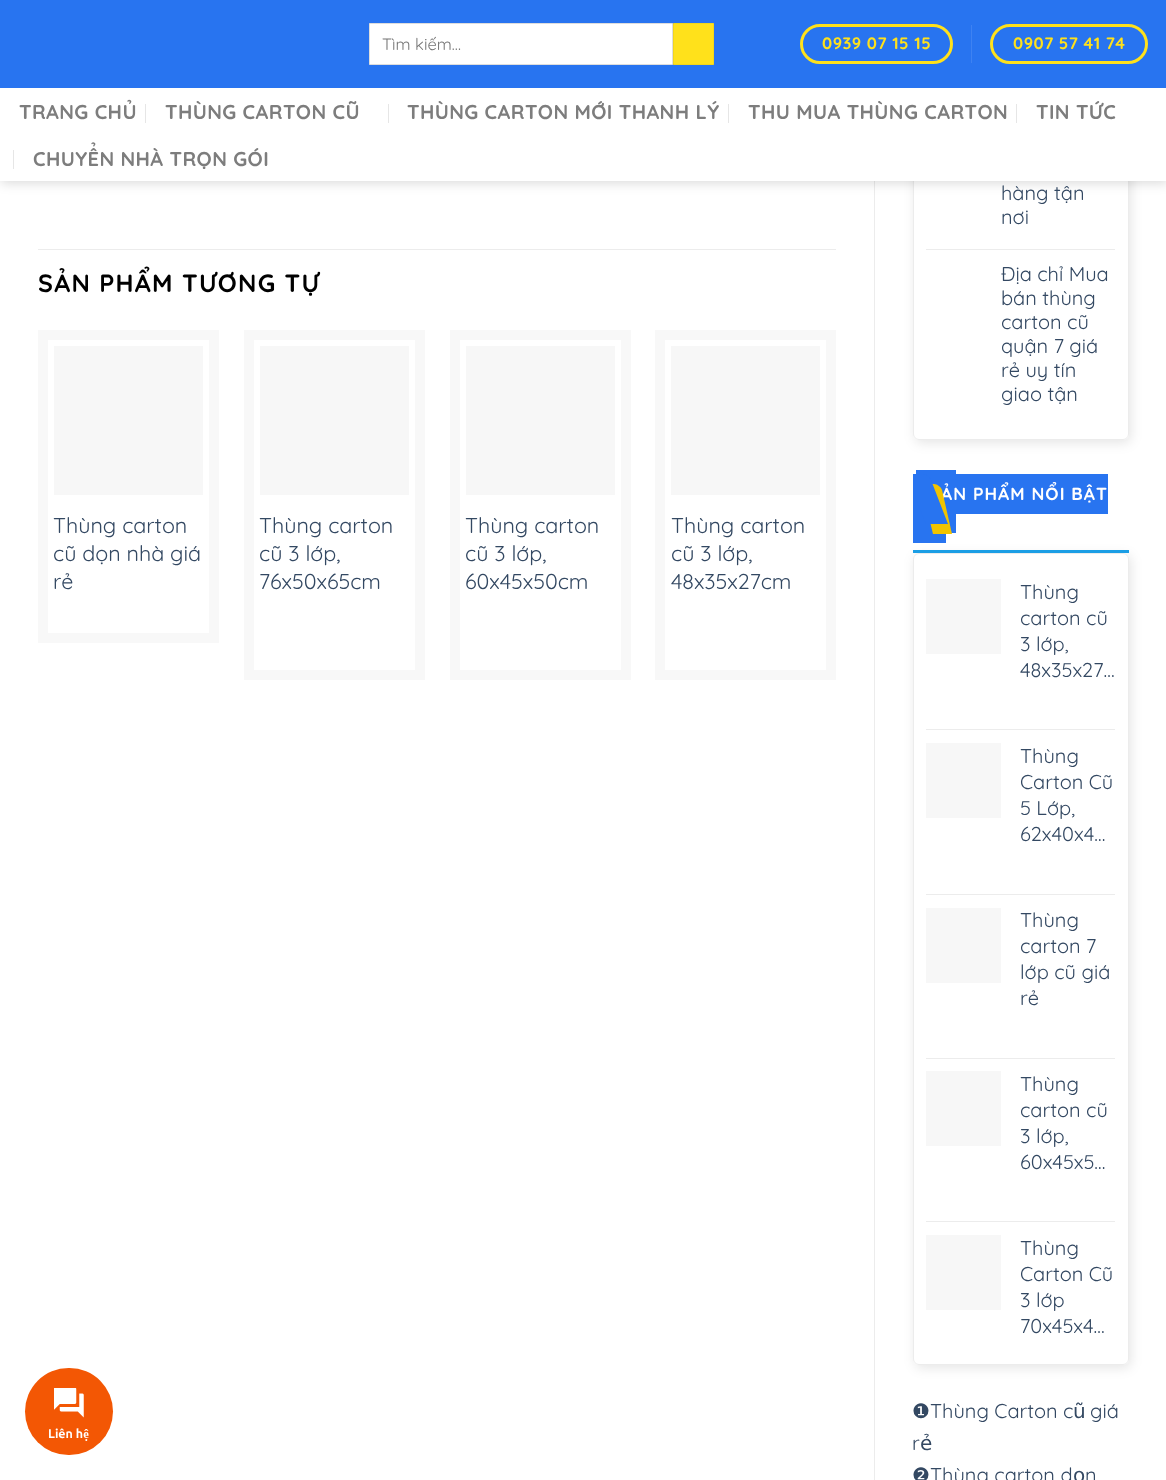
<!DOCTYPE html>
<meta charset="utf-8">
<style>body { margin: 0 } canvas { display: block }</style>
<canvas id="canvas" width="1166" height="1480"></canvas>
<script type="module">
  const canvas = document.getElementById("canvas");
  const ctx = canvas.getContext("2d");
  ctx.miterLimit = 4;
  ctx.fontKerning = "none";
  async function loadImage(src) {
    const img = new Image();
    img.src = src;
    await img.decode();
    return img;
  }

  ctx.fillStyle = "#ffffff";
  ctx.fillRect(0, 0, 1166, 1480);
  ctx.fillStyle = "#ececec";
  ctx.fillRect(874, 181, 1, 1299);
  ctx.save();
  ctx.beginPath();
  ctx.moveTo(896, 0);
  ctx.lineTo(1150, 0);
  ctx.lineTo(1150, 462);
  ctx.lineTo(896, 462);
  ctx.closePath();
  ctx.moveTo(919, -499);
  ctx.lineTo(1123, -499);
  ctx.bezierCurveTo(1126.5, -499, 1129, -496.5, 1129, -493);
  ctx.lineTo(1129, 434);
  ctx.bezierCurveTo(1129, 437.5, 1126.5, 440, 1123, 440);
  ctx.lineTo(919, 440);
  ctx.bezierCurveTo(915.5, 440, 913, 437.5, 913, 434);
  ctx.lineTo(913, -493);
  ctx.bezierCurveTo(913, -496.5, 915.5, -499, 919, -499);
  ctx.closePath();
  ctx.clip("evenodd");
  ctx.fillStyle = "rgba(0, 0, 0, 0.1)";
  ctx.filter = "blur(6px)";
  ctx.beginPath();
  ctx.roundRect(915, -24, 216, 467, 6);
  ctx.fill();
  ctx.filter = "none";
  ctx.restore();
  ctx.beginPath();
  ctx.roundRect(913.5, -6.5, 215, 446, 5.5);
  ctx.strokeStyle = "#ececec";
  ctx.stroke();
  ctx.fillStyle = "rgba(0, 0, 0, 0.15)";
  ctx.filter = "blur(6px)";
  ctx.beginPath();
  ctx.rect(1, 1, 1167, 182);
  ctx.fill();
  ctx.filter = "none";
  ctx.fillStyle = "#2874f0";
  ctx.fillRect(0, 0, 1166, 88);
  ctx.fillStyle = "#ffffff";
  ctx.beginPath();
  ctx.rect(369.5, 23.5, 303, 41);
  ctx.fill();
  ctx.strokeStyle = "#dddddd";
  ctx.stroke();
  ctx.font = "16.5px Quicksand";
  ctx.fillStyle = "#757575";
  ctx.fillText("Tìm kiếm…", 382, 50);
  ctx.fillStyle = "#ffe11b";
  ctx.beginPath();
  ctx.rect(673.5, 23.5, 40, 41);
  ctx.fill();
  ctx.strokeStyle = "#f2d61a";
  ctx.stroke();
  ctx.beginPath();
  ctx.roundRect(801.5, 25.5, 150, 37, 18.5);
  ctx.strokeStyle = "#ffe11b";
  ctx.lineWidth = 3;
  ctx.stroke();
  ctx.letterSpacing = "0.5px";
  ctx.font = "bold 16.5px Quicksand";
  ctx.fillText("0939 07 15 15", 822, 49);
  ctx.fillStyle = "#3e82f2";
  ctx.fillRect(971, 25, 1, 38);
  ctx.beginPath();
  ctx.roundRect(991.5, 25.5, 155, 37, 18.5);
  ctx.stroke();
  ctx.fillStyle = "#ffe11b";
  ctx.fillText("0907 57 41 74", 1013, 49);
  ctx.fillStyle = "#ffffff";
  ctx.fillRect(0, 88, 1166, 93);
  ctx.letterSpacing = "0.4px";
  ctx.font = "bold 20px Quicksand";
  ctx.fillStyle = "#7d7d7d";
  ctx.fillText("TRANG CHỦ", 19, 119);
  ctx.fillStyle = "#e6e6e6";
  ctx.fillRect(145, 104, 1, 19);
  ctx.fillStyle = "#7d7d7d";
  ctx.fillText("THÙNG CARTON CŨ", 165, 119);
  ctx.fillStyle = "#e6e6e6";
  ctx.fillRect(388, 104, 1, 19);
  ctx.fillStyle = "#7d7d7d";
  ctx.fillText("THÙNG CARTON MỚI THANH LÝ", 407, 119);
  ctx.fillStyle = "#e6e6e6";
  ctx.fillRect(728, 104, 1, 19);
  ctx.fillStyle = "#7d7d7d";
  ctx.fillText("THU MUA THÙNG CARTON", 748, 119);
  ctx.fillStyle = "#e6e6e6";
  ctx.fillRect(1016, 104, 1, 19);
  ctx.fillStyle = "#7d7d7d";
  ctx.fillText("TIN TỨC", 1036, 119);
  ctx.fillStyle = "#e6e6e6";
  ctx.fillRect(13, 150, 1, 19);
  ctx.fillStyle = "#7d7d7d";
  ctx.fillText("CHUYỂN NHÀ TRỌN GÓI", 33, 166);
  ctx.fillStyle = "#ececec";
  ctx.fillRect(38, 249, 798, 1);
  ctx.letterSpacing = "1.25px";
  ctx.font = "bold 25px Quicksand";
  ctx.fillStyle = "#000000";
  ctx.fillText("SẢN PHẨM TƯƠNG TỰ", 38, 292);
  ctx.strokeStyle = "#f8f8f8";
  ctx.lineWidth = 10;
  ctx.strokeRect(43, 335, 171, 303);
  ctx.fillStyle = "#f7f7f7";
  ctx.fillRect(54, 346, 149, 149);
  ctx.letterSpacing = "0px";
  ctx.font = "21.5px Quicksand";
  ctx.fillStyle = "#334862";
  ctx.fillText("Thùng carton", 53, 533);
  ctx.fillText("cũ dọn nhà giá", 53, 561);
  ctx.fillText("rẻ", 53, 589);
  ctx.strokeRect(249, 335, 171, 340);
  ctx.fillStyle = "#f7f7f7";
  ctx.fillRect(260, 346, 149, 149);
  ctx.fillStyle = "#334862";
  ctx.fillText("Thùng carton", 259, 533);
  ctx.fillText("cũ 3 lớp,", 259, 561);
  ctx.fillText("76x50x65cm", 259, 589);
  ctx.strokeRect(455, 335, 171, 340);
  ctx.fillStyle = "#f7f7f7";
  ctx.fillRect(466, 346, 149, 149);
  ctx.fillStyle = "#334862";
  ctx.fillText("Thùng carton", 465, 533);
  ctx.fillText("cũ 3 lớp,", 465, 561);
  ctx.fillText("60x45x50cm", 465, 589);
  ctx.strokeRect(660, 335, 171, 340);
  ctx.fillStyle = "#f7f7f7";
  ctx.fillRect(671, 346, 149, 149);
  ctx.fillStyle = "#334862";
  ctx.fillText("Thùng carton", 671, 533);
  ctx.fillText("cũ 3 lớp,", 671, 561);
  ctx.fillText("48x35x27cm", 671, 589);
  ctx.font = "20px Quicksand";
  ctx.fillText("hàng tận", 1001, 200);
  ctx.fillText("nơi", 1001, 224);
  ctx.fillStyle = "#ececec";
  ctx.fillRect(926, 249, 189, 1);
  ctx.fillStyle = "#334862";
  ctx.fillText("Địa chỉ Mua", 1001, 281);
  ctx.fillText("bán thùng", 1001, 305);
  ctx.fillText("carton cũ", 1001, 329);
  ctx.fillText("quận 7 giá", 1001, 353);
  ctx.fillText("rẻ uy tín", 1001, 377);
  ctx.fillText("giao tận", 1001, 401);
  ctx.save();
  ctx.beginPath();
  ctx.moveTo(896, 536);
  ctx.lineTo(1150, 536);
  ctx.lineTo(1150, 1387);
  ctx.lineTo(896, 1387);
  ctx.closePath();
  ctx.moveTo(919, 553);
  ctx.lineTo(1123, 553);
  ctx.bezierCurveTo(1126.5, 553, 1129, 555.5, 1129, 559);
  ctx.lineTo(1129, 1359);
  ctx.bezierCurveTo(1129, 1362.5, 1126.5, 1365, 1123, 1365);
  ctx.lineTo(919, 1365);
  ctx.bezierCurveTo(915.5, 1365, 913, 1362.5, 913, 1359);
  ctx.lineTo(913, 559);
  ctx.bezierCurveTo(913, 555.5, 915.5, 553, 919, 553);
  ctx.closePath();
  ctx.clip("evenodd");
  ctx.fillStyle = "rgba(0, 0, 0, 0.1)";
  ctx.filter = "blur(6px)";
  ctx.beginPath();
  ctx.roundRect(915, 555, 216, 813, 6);
  ctx.fill();
  ctx.filter = "none";
  ctx.restore();
  ctx.fillStyle = "#1b9ee5";
  ctx.fillRect(913, 550, 216, 3);
  ctx.save();
  ctx.beginPath();
  ctx.rect(913, 470, 216, 80);
  ctx.clip();
  ctx.fillStyle = "#2874f0";
  ctx.beginPath();
  ctx.roundRect(910, 475, 36, 68, [6, 0, 0, 0]);
  ctx.fill();
  ctx.restore();
  ctx.fillStyle = "#2874f0";
  ctx.fillRect(956, 474, 152, 40);
  ctx.save();
  ctx.beginPath();
  ctx.rect(913, 470, 216, 80);
  ctx.clip();
  ctx.beginPath();
  ctx.roundRect(916, 465, 40, 68, [0, 6, 0, 0]);
  ctx.fill();
  ctx.restore();
  ctx.letterSpacing = "1px";
  ctx.font = "bold 17.5px Quicksand";
  ctx.fillStyle = "#ffffff";
  ctx.fillText("ẢN PHẨM NỔI BẬT", 941, 500);
  ctx.fillStyle = "#f1c400";
  ctx.beginPath();
  ctx.moveTo(921, 484);
  ctx.lineTo(934, 484);
  ctx.bezierCurveTo(937, 484, 941, 487, 942, 490);
  ctx.lineTo(952, 534);
  ctx.lineTo(933, 534);
  ctx.closePath();
  ctx.fill();
  ctx.save();
  ctx.beginPath();
  ctx.rect(913, 470, 216, 80);
  ctx.clip();
  ctx.fillStyle = "#2874f0";
  ctx.beginPath();
  ctx.moveTo(906, 474);
  ctx.lineTo(923, 474);
  ctx.bezierCurveTo(926, 474, 930, 477, 931, 480);
  ctx.lineTo(948, 524);
  ctx.lineTo(926, 524);
  ctx.closePath();
  ctx.fill();
  ctx.restore();
  ctx.beginPath();
  ctx.roundRect(913.5, 553.5, 215, 811, 5.5);
  ctx.strokeStyle = "#ececec";
  ctx.lineWidth = 1;
  ctx.stroke();
  ctx.fillStyle = "#f7f7f7";
  ctx.fillRect(926, 579, 75, 75);
  ctx.letterSpacing = "0px";
  ctx.font = "20px Quicksand";
  ctx.fillStyle = "#334862";
  ctx.fillText("Thùng", 1020, 599);
  ctx.fillText("carton cũ", 1020, 625);
  ctx.fillText("3 lớp,", 1020, 651);
  ctx.fillText("48x35x27…", 1020, 677);
  ctx.fillStyle = "#ececec";
  ctx.fillRect(926, 729, 189, 1);
  ctx.fillStyle = "#f7f7f7";
  ctx.fillRect(926, 743, 75, 75);
  ctx.fillStyle = "#334862";
  ctx.fillText("Thùng", 1020, 763);
  ctx.fillText("Carton Cũ", 1020, 789);
  ctx.fillText("5 Lớp,", 1020, 815);
  ctx.fillText("62x40x4…", 1020, 841);
  ctx.fillStyle = "#ececec";
  ctx.fillRect(926, 894, 189, 1);
  ctx.fillStyle = "#f7f7f7";
  ctx.fillRect(926, 908, 75, 75);
  ctx.fillStyle = "#334862";
  ctx.fillText("Thùng", 1020, 927);
  ctx.fillText("carton 7", 1020, 953);
  ctx.fillText("lớp cũ giá", 1020, 979);
  ctx.fillText("rẻ", 1020, 1005);
  ctx.fillStyle = "#ececec";
  ctx.fillRect(926, 1058, 189, 1);
  ctx.fillStyle = "#f7f7f7";
  ctx.fillRect(926, 1071, 75, 75);
  ctx.fillStyle = "#334862";
  ctx.fillText("Thùng", 1020, 1091);
  ctx.fillText("carton cũ", 1020, 1117);
  ctx.fillText("3 lớp,", 1020, 1143);
  ctx.fillText("60x45x5…", 1020, 1169);
  ctx.fillStyle = "#ececec";
  ctx.fillRect(926, 1221, 189, 1);
  ctx.fillStyle = "#f7f7f7";
  ctx.fillRect(926, 1235, 75, 75);
  ctx.fillStyle = "#334862";
  ctx.fillText("Thùng", 1020, 1255);
  ctx.fillText("Carton Cũ", 1020, 1281);
  ctx.fillText("3 lớp", 1020, 1307);
  ctx.fillText("70x45x4…", 1020, 1333);
  ctx.font = "20px DejaVu Sans";
  ctx.fillText("❶", 912, 1418);
  ctx.font = "20px Quicksand";
  ctx.fillText("Thùng Carton c", 930, 1418);
  ctx.font = "20px DejaVu Sans";
  ctx.fillText("ũ", 1073, 1418);
  ctx.font = "20px Quicksand";
  ctx.fillText("giá", 1090, 1418);
  ctx.fillText("r", 912, 1450);
  ctx.font = "20px DejaVu Sans";
  ctx.fillText("ẻ", 920, 1450);
  ctx.fillText("❷", 912, 1482);
  ctx.font = "20px Quicksand";
  ctx.fillText("Thùng carton d", 930, 1482);
  ctx.font = "20px DejaVu Sans";
  ctx.fillText("ọ", 1073, 1482);
  ctx.font = "20px Quicksand";
  ctx.fillText("n", 1085, 1482);
  ctx.fillStyle = "#f35704";
  ctx.beginPath();
  ctx.roundRect(25, 1368, 88, 87, 43.5);
  ctx.fill();
  ctx.drawImage(await loadImage("img1.png"), 54, 1388, 30, 30);
  ctx.font = "bold 12.5px Ubuntu";
  ctx.fillStyle = "#ffffff";
  ctx.fillText("Liên hệ", 48, 1438);
</script>
